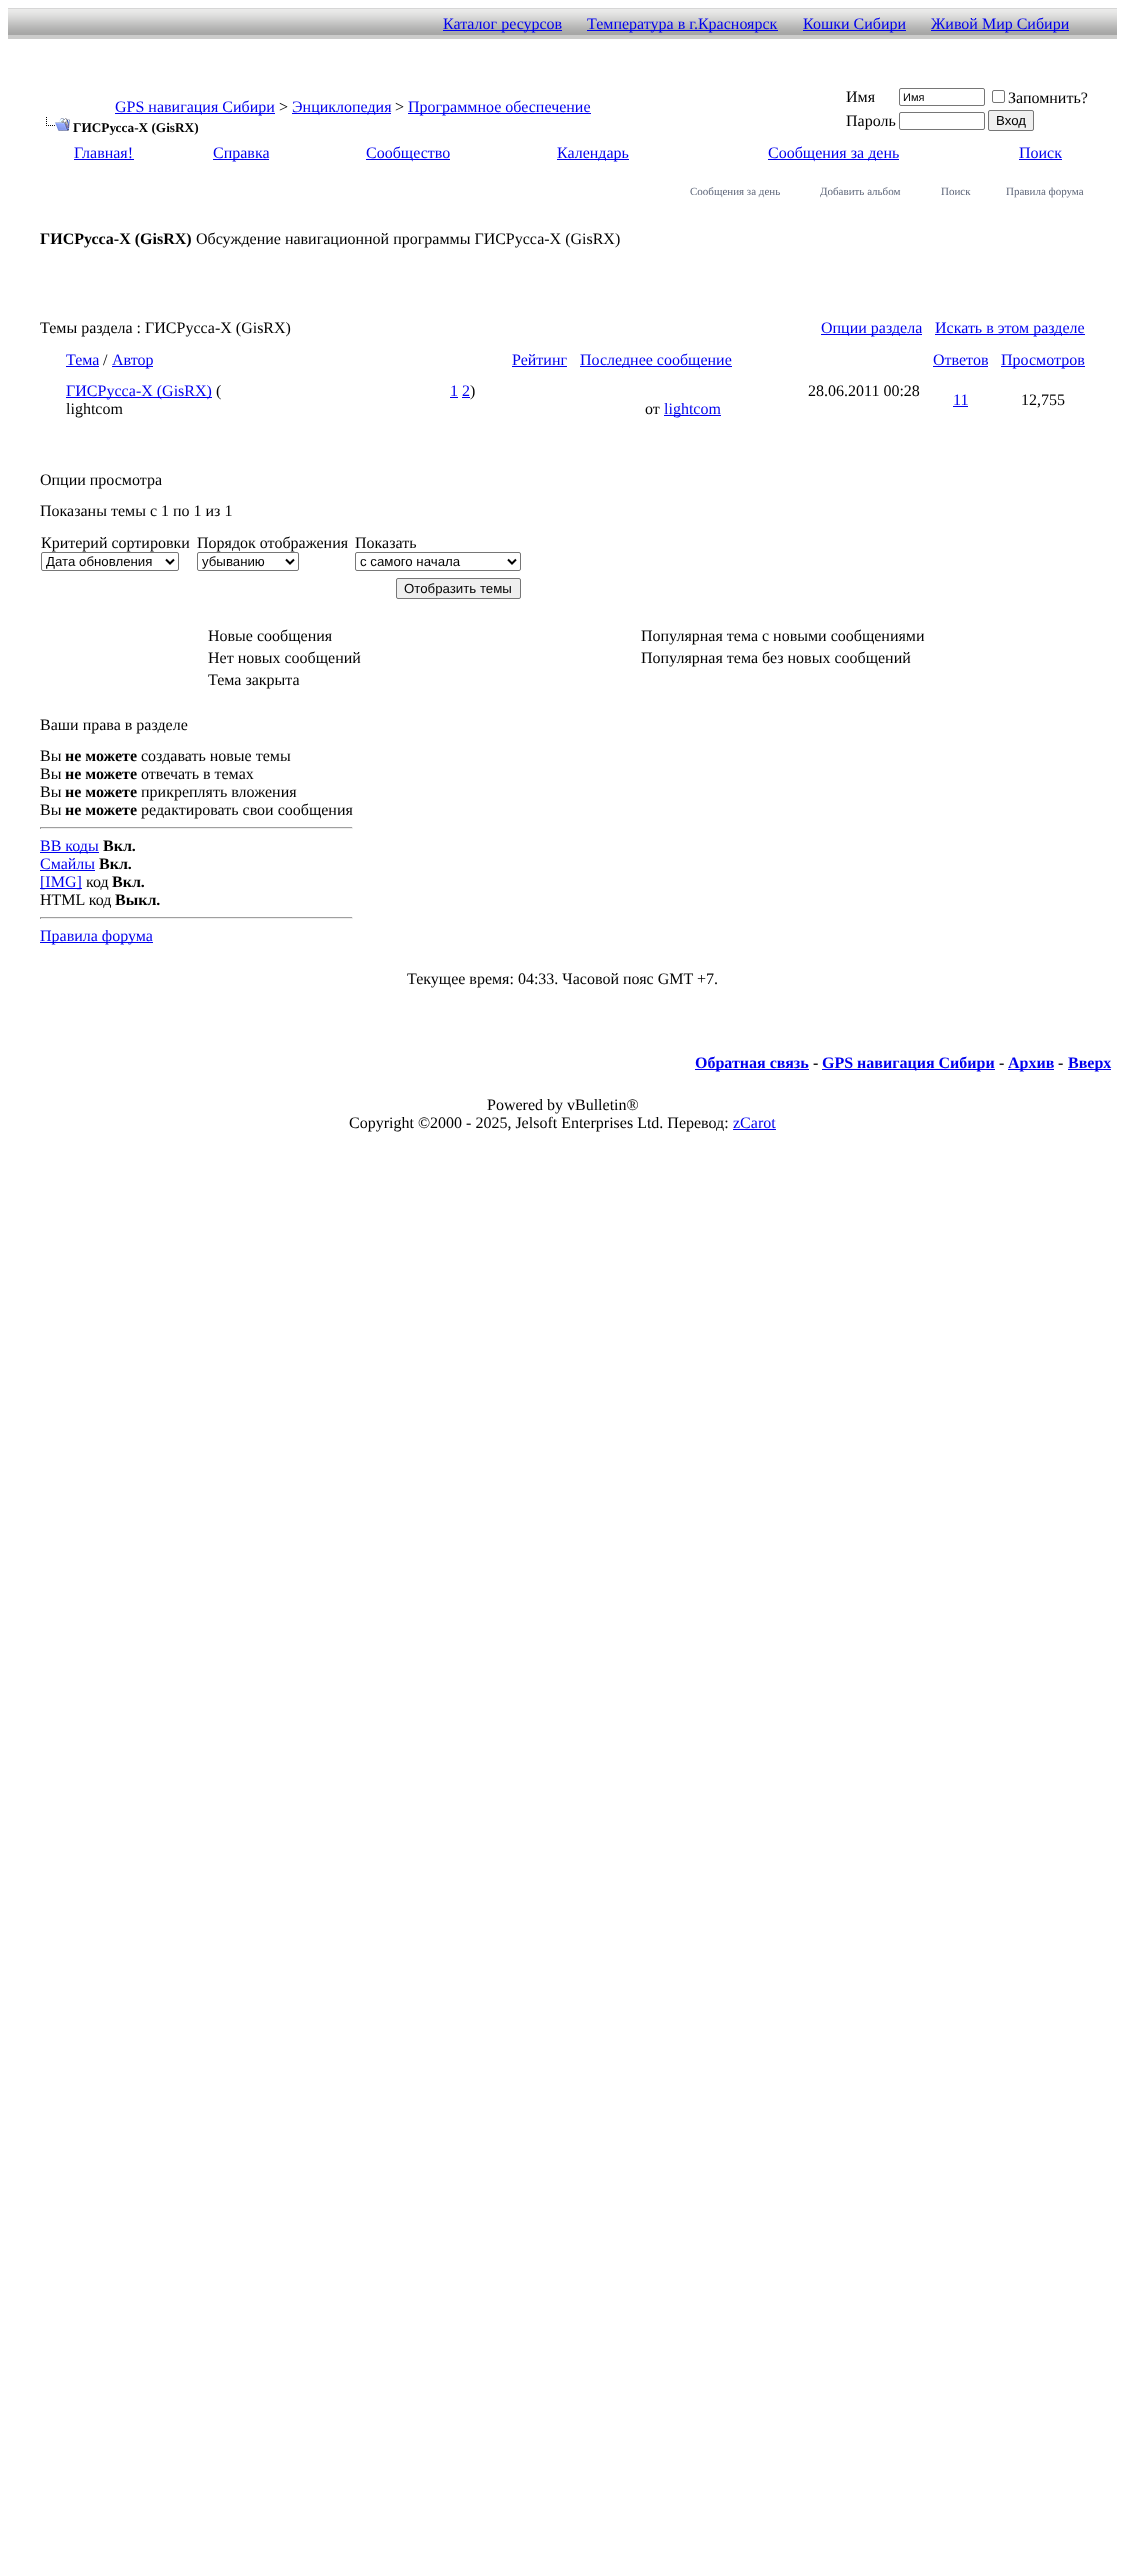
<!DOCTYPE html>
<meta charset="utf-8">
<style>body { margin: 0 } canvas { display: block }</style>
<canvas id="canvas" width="1125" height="2563"></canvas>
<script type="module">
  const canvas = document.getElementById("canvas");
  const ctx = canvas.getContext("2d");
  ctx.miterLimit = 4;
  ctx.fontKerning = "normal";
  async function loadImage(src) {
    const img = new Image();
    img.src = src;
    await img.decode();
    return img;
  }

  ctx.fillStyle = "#ffffff";
  ctx.fillRect(0, 0, 1125, 2563);
  ctx.drawImage(await loadImage("img1.png"), 8, 8, 1109, 31);
  ctx.fillStyle = "#0000ee";
  ctx.fillRect(443, 30, 119, 1);
  ctx.font = "16px Liberation Serif";
  ctx.fillText("Каталог ресурсов", 443, 29);
  ctx.fillRect(587, 30, 191, 1);
  ctx.fillText("Температура в г.Красноярск", 587, 29);
  ctx.fillRect(803, 30, 103, 1);
  ctx.fillText("Кошки Сибири", 803, 29);
  ctx.fillRect(931, 30, 138, 1);
  ctx.fillText("Живой Мир Сибири", 931, 29);
  ctx.fillRect(115, 113, 160, 1);
  ctx.fillText("GPS навигация Сибири", 115, 112);
  ctx.fillStyle = "#000000";
  ctx.fillText(">", 279, 112);
  ctx.fillStyle = "#0000ee";
  ctx.fillRect(292, 113, 99, 1);
  ctx.fillText("Энциклопедия", 292, 112);
  ctx.fillStyle = "#000000";
  ctx.fillText(">", 395, 112);
  ctx.fillStyle = "#0000ee";
  ctx.fillRect(408, 113, 183, 1);
  ctx.fillText("Программное обеспечение", 408, 112);
  ctx.drawImage(await loadImage("img2.png"), 46, 117, 24, 14);
  ctx.font = "bold 13.25px Liberation Serif";
  ctx.fillStyle = "#000000";
  ctx.fillText("ГИСРусса-X (GisRX)", 73, 132);
  ctx.font = "16px Liberation Serif";
  ctx.fillText("Имя", 846, 102);
  ctx.beginPath();
  ctx.roundRect(899.5, 88.5, 85, 17, 1.5);
  ctx.strokeStyle = "#767676";
  ctx.stroke();
  ctx.font = "11px Liberation Sans";
  ctx.fillText("Имя", 903, 101);
  ctx.beginPath();
  ctx.roundRect(992.5, 90.5, 12, 12, 1.5);
  ctx.stroke();
  ctx.font = "16px Liberation Serif";
  ctx.fillText("Запомнить?", 1008, 103);
  ctx.fillText("Пароль", 846, 126);
  ctx.beginPath();
  ctx.roundRect(899.5, 112.5, 85, 17, 1.5);
  ctx.stroke();
  ctx.fillStyle = "#efefef";
  ctx.beginPath();
  ctx.roundRect(988.5, 110.5, 45, 20, 1.5);
  ctx.fill();
  ctx.stroke();
  ctx.font = "13.25px Liberation Sans";
  ctx.fillStyle = "#000000";
  ctx.fillText("Вход", 996, 125);
  ctx.font = "16px Liberation Serif";
  ctx.fillStyle = "#0000ee";
  ctx.fillText("Главная!", 74, 158);
  ctx.fillRect(74, 159, 60, 1);
  ctx.fillRect(213, 159, 56, 1);
  ctx.fillText("Справка", 213, 158);
  ctx.fillRect(366, 159, 84, 1);
  ctx.fillText("Сообщество", 366, 158);
  ctx.fillRect(557, 159, 72, 1);
  ctx.fillText("Календарь", 557, 158);
  ctx.fillRect(768, 159, 131, 1);
  ctx.fillText("Сообщения за день", 768, 158);
  ctx.fillText("Поиск", 1019, 158);
  ctx.fillRect(1019, 159, 43, 1);
  ctx.font = "11px Liberation Serif";
  ctx.fillStyle = "#5f677a";
  ctx.fillText("Сообщения за день", 690, 195);
  ctx.fillText("Добавить альбом", 820, 195);
  ctx.fillText("Поиск", 941, 195);
  ctx.fillText("Правила форума", 1006, 195);
  ctx.font = "bold 16px Liberation Serif";
  ctx.fillStyle = "#000000";
  ctx.fillText("ГИСРусса-X (GisRX)", 40, 244);
  ctx.font = "16px Liberation Serif";
  ctx.fillText("Обсуждение навигационной программы ГИСРусса-X (GisRX)", 196, 244);
  ctx.fillText("Темы раздела : ГИСРусса-X (GisRX)", 40, 333);
  ctx.fillStyle = "#0000ee";
  ctx.fillRect(821, 334, 101, 1);
  ctx.fillText("Опции раздела", 821, 333);
  ctx.fillRect(935, 334, 150, 1);
  ctx.fillText("Искать в этом разделе", 935, 333);
  ctx.fillText("Тема", 66, 365);
  ctx.fillRect(66, 366, 33, 1);
  ctx.fillStyle = "#000000";
  ctx.fillText("/", 103, 365);
  ctx.fillStyle = "#0000ee";
  ctx.fillRect(112, 366, 41, 1);
  ctx.fillText("Автор", 112, 365);
  ctx.fillText("Рейтинг", 512, 365);
  ctx.fillRect(512, 366, 55, 1);
  ctx.fillRect(580, 366, 152, 1);
  ctx.fillText("Последнее сообщение", 580, 365);
  ctx.fillText("Ответов", 933, 365);
  ctx.fillRect(933, 366, 55, 1);
  ctx.fillRect(1001, 366, 84, 1);
  ctx.fillText("Просмотров", 1001, 365);
  ctx.fillRect(66, 397, 146, 1);
  ctx.fillText("ГИСРусса-X (GisRX)", 66, 396);
  ctx.fillStyle = "#000000";
  ctx.fillText("(", 216, 396);
  ctx.fillStyle = "#0000ee";
  ctx.fillText("1 2", 450, 396);
  ctx.fillRect(450, 397, 8, 1);
  ctx.fillStyle = "#000000";
  ctx.fillText(")", 470, 396);
  ctx.fillStyle = "#0000ee";
  ctx.fillRect(462, 397, 8, 1);
  ctx.fillStyle = "#000000";
  ctx.fillText("lightcom", 66, 414);
  ctx.fillText("28.06.2011 00:28", 808, 396);
  ctx.fillText("от", 645, 414);
  ctx.fillStyle = "#0000ee";
  ctx.fillRect(664, 415, 57, 1);
  ctx.fillText("lightcom", 664, 414);
  ctx.fillText("11", 953, 405);
  ctx.fillRect(953, 406, 15, 1);
  ctx.fillStyle = "#000000";
  ctx.fillText("12,755", 1021, 405);
  ctx.fillText("Опции просмотра", 40, 485);
  ctx.fillText("Показаны темы с 1 по 1 из 1", 40, 516);
  ctx.fillText("Критерий сортировки", 41, 548);
  ctx.beginPath();
  ctx.roundRect(41.5, 552.5, 137, 18, 1.5);
  ctx.stroke();
  ctx.beginPath();
  ctx.moveTo(166, 559.5);
  ctx.lineTo(170, 563.5);
  ctx.lineTo(174, 559.5);
  ctx.strokeStyle = "#000000";
  ctx.lineWidth = 2;
  ctx.stroke();
  ctx.font = "13.25px Liberation Sans";
  ctx.fillText("Дата обновления", 46, 566);
  ctx.font = "16px Liberation Serif";
  ctx.fillText("Порядок отображения", 197, 548);
  ctx.beginPath();
  ctx.roundRect(197.5, 552.5, 101, 18, 1.5);
  ctx.strokeStyle = "#767676";
  ctx.lineWidth = 1;
  ctx.stroke();
  ctx.beginPath();
  ctx.moveTo(286, 559.5);
  ctx.lineTo(290, 563.5);
  ctx.lineTo(294, 559.5);
  ctx.strokeStyle = "#000000";
  ctx.lineWidth = 2;
  ctx.stroke();
  ctx.font = "13.25px Liberation Sans";
  ctx.fillText("убыванию", 202, 566);
  ctx.font = "16px Liberation Serif";
  ctx.fillText("Показать", 355, 548);
  ctx.beginPath();
  ctx.roundRect(355.5, 552.5, 165, 18, 1.5);
  ctx.strokeStyle = "#767676";
  ctx.lineWidth = 1;
  ctx.stroke();
  ctx.beginPath();
  ctx.moveTo(508, 559.5);
  ctx.lineTo(512, 563.5);
  ctx.lineTo(516, 559.5);
  ctx.strokeStyle = "#000000";
  ctx.lineWidth = 2;
  ctx.stroke();
  ctx.font = "13.25px Liberation Sans";
  ctx.fillText("с самого начала", 360, 566);
  ctx.fillStyle = "#efefef";
  ctx.beginPath();
  ctx.roundRect(396.5, 578.5, 124, 20, 1.5);
  ctx.fill();
  ctx.strokeStyle = "#767676";
  ctx.lineWidth = 1;
  ctx.stroke();
  ctx.fillStyle = "#000000";
  ctx.fillText("Отобразить темы", 404, 593);
  ctx.font = "16px Liberation Serif";
  ctx.fillText("Новые сообщения", 208, 641);
  ctx.fillText("Популярная тема с новыми сообщениями", 641, 641);
  ctx.fillText("Нет новых сообщений", 208, 663);
  ctx.fillText("Популярная тема без новых сообщений", 641, 663);
  ctx.fillText("Тема закрыта", 208, 685);
  ctx.fillText("Ваши права в разделе", 40, 730);
  ctx.fillText("Вы", 40, 761);
  ctx.font = "bold 16px Liberation Serif";
  ctx.fillText("не можете", 65, 761);
  ctx.font = "16px Liberation Serif";
  ctx.fillText("создавать новые темы", 141, 761);
  ctx.fillText("Вы", 40, 779);
  ctx.font = "bold 16px Liberation Serif";
  ctx.fillText("не можете", 65, 779);
  ctx.font = "16px Liberation Serif";
  ctx.fillText("отвечать в темах", 141, 779);
  ctx.fillText("Вы", 40, 797);
  ctx.font = "bold 16px Liberation Serif";
  ctx.fillText("не можете", 65, 797);
  ctx.font = "16px Liberation Serif";
  ctx.fillText("прикреплять вложения", 141, 797);
  ctx.fillText("Вы", 40, 815);
  ctx.font = "bold 16px Liberation Serif";
  ctx.fillText("не можете", 65, 815);
  ctx.font = "16px Liberation Serif";
  ctx.fillText("редактировать свои сообщения", 141, 815);
  ctx.fillStyle = "#9f9f9f";
  ctx.fillRect(40, 827, 313, 1);
  ctx.fillStyle = "#eeeeee";
  ctx.fillRect(352, 827, 1, 2);
  ctx.fillRect(40, 828, 313, 1);
  ctx.fillStyle = "#9f9f9f";
  ctx.fillRect(40, 827, 1, 2);
  ctx.fillStyle = "#0000ee";
  ctx.fillRect(40, 852, 59, 1);
  ctx.fillText("BB коды", 40, 851);
  ctx.font = "bold 16px Liberation Serif";
  ctx.fillStyle = "#000000";
  ctx.fillText("Вкл.", 103, 851);
  ctx.font = "16px Liberation Serif";
  ctx.fillStyle = "#0000ee";
  ctx.fillText("Смайлы", 40, 869);
  ctx.fillRect(40, 870, 55, 1);
  ctx.font = "bold 16px Liberation Serif";
  ctx.fillStyle = "#000000";
  ctx.fillText("Вкл.", 99, 869);
  ctx.fillStyle = "#0000ee";
  ctx.fillRect(40, 888, 42, 1);
  ctx.font = "16px Liberation Serif";
  ctx.fillText("[IMG]", 40, 887);
  ctx.fillStyle = "#000000";
  ctx.fillText("код", 86, 887);
  ctx.font = "bold 16px Liberation Serif";
  ctx.fillText("Вкл.", 112, 887);
  ctx.font = "16px Liberation Serif";
  ctx.fillText("HTML код", 40, 905);
  ctx.font = "bold 16px Liberation Serif";
  ctx.fillText("Выкл.", 115, 905);
  ctx.fillStyle = "#9f9f9f";
  ctx.fillRect(40, 917, 313, 1);
  ctx.fillStyle = "#eeeeee";
  ctx.fillRect(352, 917, 1, 2);
  ctx.fillRect(40, 918, 313, 1);
  ctx.fillStyle = "#9f9f9f";
  ctx.fillRect(40, 917, 1, 2);
  ctx.fillStyle = "#0000ee";
  ctx.fillRect(40, 942, 113, 1);
  ctx.font = "16px Liberation Serif";
  ctx.fillText("Правила форума", 40, 941);
  ctx.fillStyle = "#000000";
  ctx.fillText("Текущее время: 04:33. Часовой пояс GMT +7.", 407, 984);
  ctx.fillStyle = "#0000ee";
  ctx.fillRect(695, 1069, 114, 1);
  ctx.font = "bold 16px Liberation Serif";
  ctx.fillText("Обратная связь", 695, 1068);
  ctx.fillStyle = "#000000";
  ctx.fillText("-", 813, 1068);
  ctx.fillStyle = "#0000ee";
  ctx.fillRect(822, 1069, 173, 1);
  ctx.fillText("GPS навигация Сибири", 822, 1068);
  ctx.fillStyle = "#000000";
  ctx.fillText("-", 999, 1068);
  ctx.fillStyle = "#0000ee";
  ctx.fillRect(1008, 1069, 46, 1);
  ctx.fillText("Архив", 1008, 1068);
  ctx.fillStyle = "#000000";
  ctx.fillText("-", 1058, 1068);
  ctx.fillStyle = "#0000ee";
  ctx.fillRect(1068, 1069, 43, 1);
  ctx.fillText("Вверх", 1068, 1068);
  ctx.font = "16px Liberation Serif";
  ctx.fillStyle = "#000000";
  ctx.fillText("Powered by vBulletin®", 487, 1110);
  ctx.fillText("Copyright ©2000 - 2025, Jelsoft Enterprises Ltd. Перевод:", 349, 1128);
  ctx.fillStyle = "#0000ee";
  ctx.fillText("zCarot", 733, 1128);
  ctx.fillRect(733, 1129, 43, 1);
</script>
